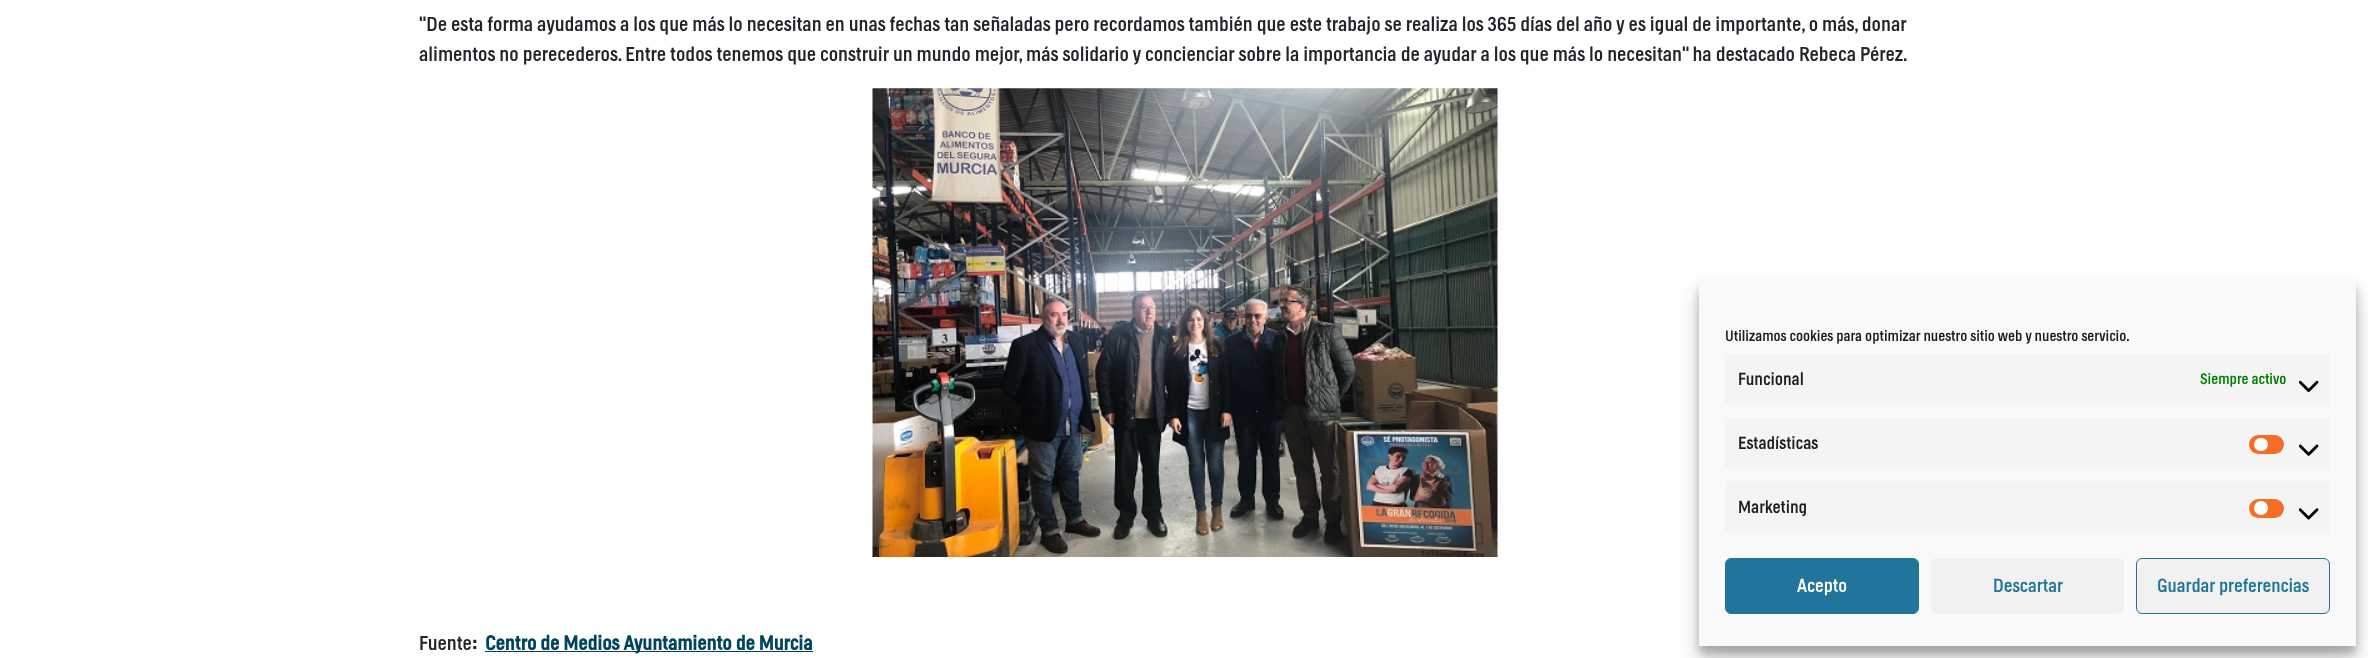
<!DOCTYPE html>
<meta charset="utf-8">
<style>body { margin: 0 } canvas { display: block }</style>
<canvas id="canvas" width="2368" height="658"></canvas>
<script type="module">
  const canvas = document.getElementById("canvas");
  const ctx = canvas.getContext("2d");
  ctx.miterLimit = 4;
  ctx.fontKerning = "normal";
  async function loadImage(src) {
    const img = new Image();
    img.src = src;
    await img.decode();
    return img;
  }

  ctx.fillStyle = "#ffffff";
  ctx.fillRect(0, 0, 2368, 658);
  ctx.font = "20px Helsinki";
  ctx.fillStyle = "#212529";
  ctx.fillText("\"De esta forma ayudamos a los que más lo necesitan en unas fechas tan señaladas pero recordamos también que este trabajo se realiza los 365 días del año y es igual de importante, o más, donar", 419, 31);
  ctx.fillText("alimentos no perecederos. Entre todos tenemos que construir un mundo mejor, más solidario y concienciar sobre la importancia de ayudar a los que más lo necesitan\" ha destacado Rebeca Pérez.", 419, 61);
  ctx.drawImage(await loadImage("img1.png"), 872, 88, 626, 469);
  ctx.fillText("Fuente", 419, 650);
  ctx.font = "bold 20px Helsinki";
  ctx.fillText(":", 472, 650);
  ctx.fillStyle = "#00445e";
  ctx.fillRect(485, 651, 328, 1);
  ctx.fillText("Centro de Medios Ayuntamiento de Murcia", 485, 650);
  ctx.fillStyle = "rgba(0, 0, 0, 0.23)";
  ctx.filter = "blur(4px)";
  ctx.beginPath();
  ctx.rect(1699, 288, 657, 366);
  ctx.fill();
  ctx.filter = "none";
  ctx.fillStyle = "rgba(0, 0, 0, 0.19)";
  ctx.filter = "blur(12.5px)";
  ctx.beginPath();
  ctx.rect(1699, 293, 657, 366);
  ctx.fill();
  ctx.filter = "none";
  ctx.fillStyle = "#f9f9f9";
  ctx.fillRect(1699, 280, 657, 366);
  ctx.font = "15px Helsinki";
  ctx.fillStyle = "#191e23";
  ctx.fillText("Utilizamos cookies para optimizar nuestro sitio web y nuestro servicio.", 1725, 341);
  ctx.fillStyle = "#f4f4f4";
  ctx.fillRect(1725, 354, 605, 51);
  ctx.font = "17.5px Helsinki";
  ctx.fillStyle = "#191e23";
  ctx.fillText("Funcional", 1738, 385);
  ctx.font = "15px Helsinki";
  ctx.fillStyle = "#008000";
  ctx.fillText("Siempre activo", 2200, 384);
  ctx.drawImage(await loadImage("img2.png"), 2299, 380, 20, 12);
  ctx.fillStyle = "#f4f4f4";
  ctx.fillRect(1725, 418, 605, 51);
  ctx.font = "17.5px Helsinki";
  ctx.fillStyle = "#191e23";
  ctx.fillText("Estadísticas", 1738, 449);
  ctx.fillStyle = "#f56e28";
  ctx.beginPath();
  ctx.roundRect(2249, 435, 35, 19, 9.5);
  ctx.fill();
  ctx.fillStyle = "#ffffff";
  ctx.beginPath();
  ctx.roundRect(2254, 438, 14, 13, 6.5);
  ctx.fill();
  ctx.drawImage(await loadImage("img3.png"), 2299, 444, 20, 12);
  ctx.fillStyle = "#f4f4f4";
  ctx.fillRect(1725, 481, 605, 52);
  ctx.fillStyle = "#191e23";
  ctx.fillText("Marketing", 1738, 513);
  ctx.fillStyle = "#f56e28";
  ctx.beginPath();
  ctx.roundRect(2249, 499, 35, 19, 9.5);
  ctx.fill();
  ctx.fillStyle = "#ffffff";
  ctx.beginPath();
  ctx.arc(2261, 508, 7, 0, Math.PI * 2);
  ctx.fill();
  ctx.drawImage(await loadImage("img4.png"), 2299, 508, 20, 12);
  ctx.fillStyle = "#21759b";
  ctx.beginPath();
  ctx.roundRect(1725.5, 558.5, 193, 55, 5.5);
  ctx.fill();
  ctx.strokeStyle = "#21759b";
  ctx.stroke();
  ctx.font = "18.75px Helsinki";
  ctx.fillStyle = "#ffffff";
  ctx.fillText("Acepto", 1797, 592);
  ctx.fillStyle = "#f1f1f1";
  ctx.beginPath();
  ctx.roundRect(1931, 558, 193, 56, 6);
  ctx.fill();
  ctx.fillStyle = "#21759b";
  ctx.fillText("Descartar", 1993, 592);
  ctx.fillStyle = "#f1f1f1";
  ctx.beginPath();
  ctx.roundRect(2136.5, 558.5, 193, 55, 5.5);
  ctx.fill();
  ctx.stroke();
  ctx.fillStyle = "#21759b";
  ctx.fillText("Guardar preferencias", 2157, 592);
</script>
